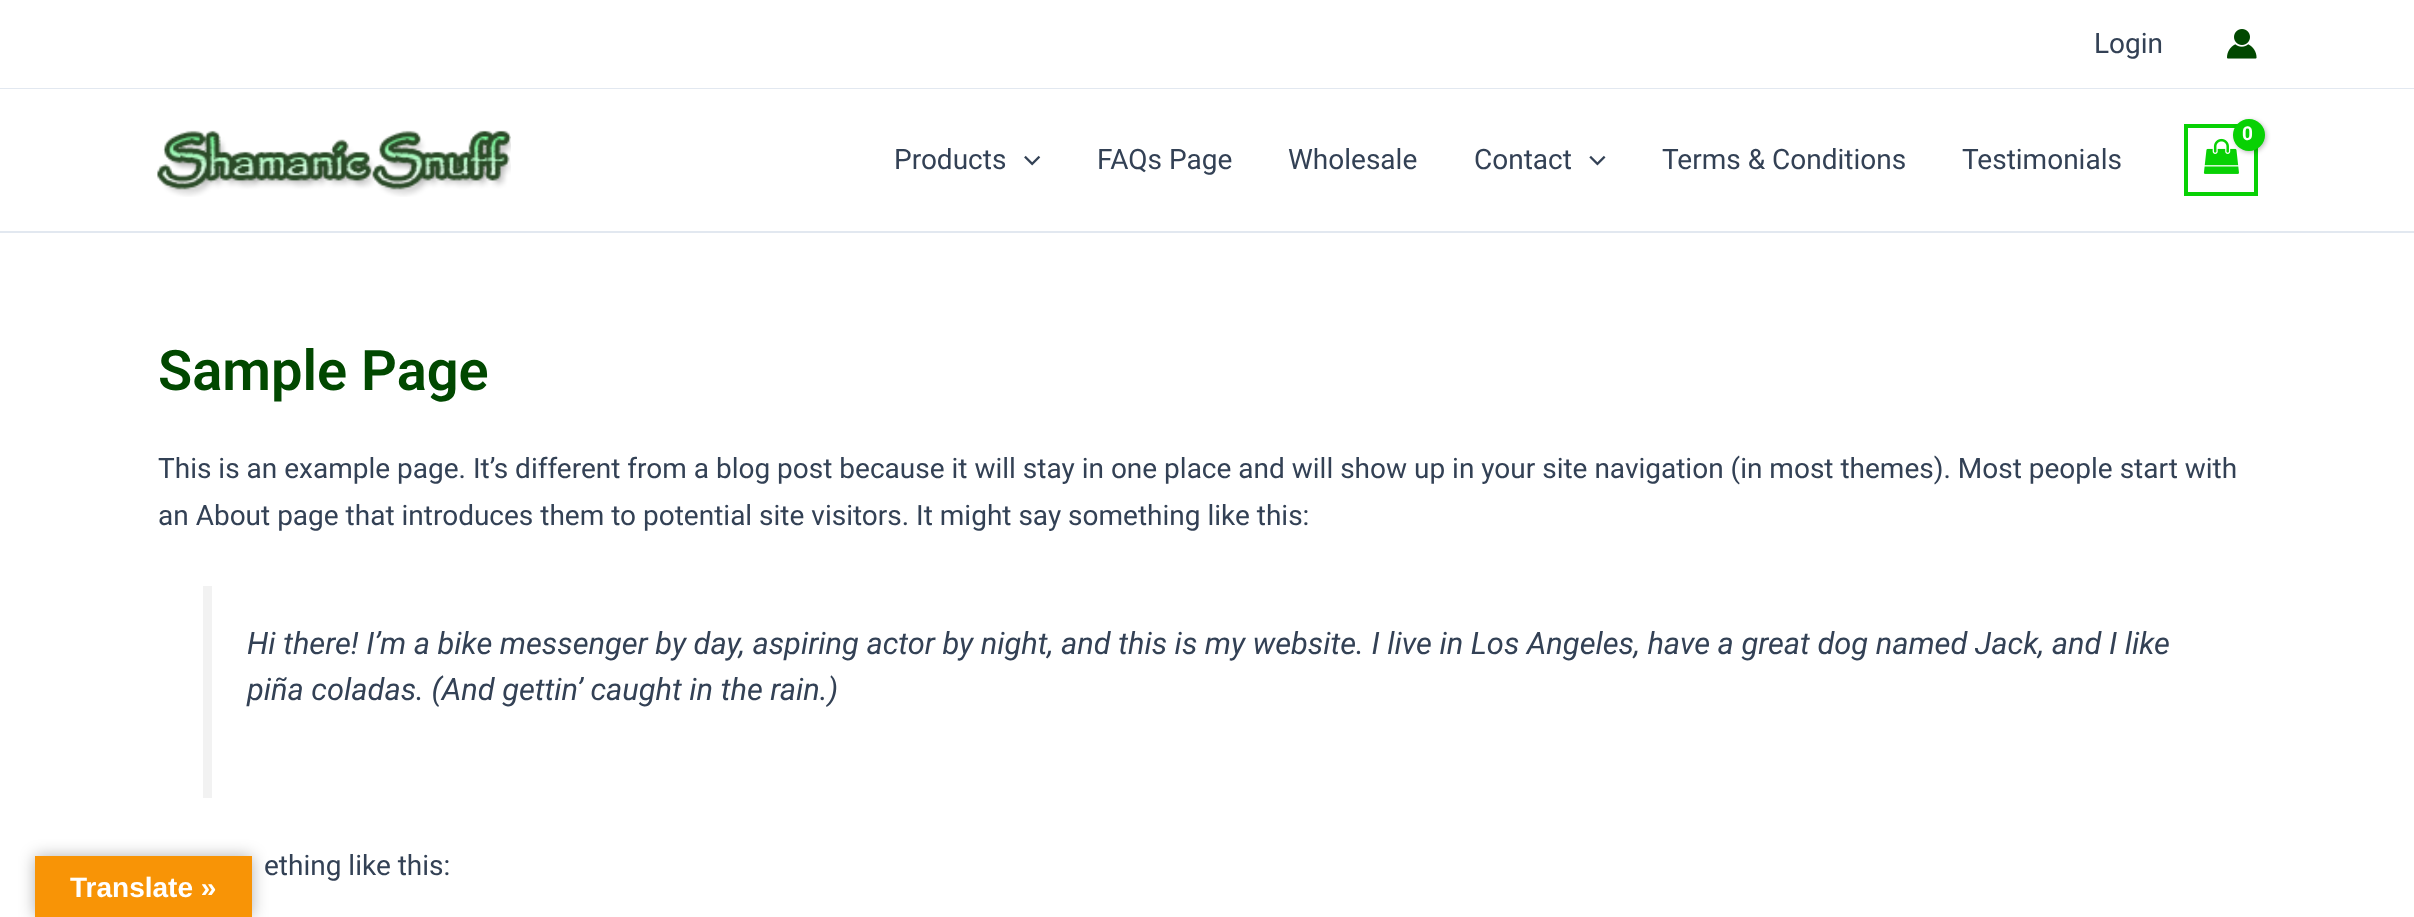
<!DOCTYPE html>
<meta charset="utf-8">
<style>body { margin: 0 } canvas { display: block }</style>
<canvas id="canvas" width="2414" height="917"></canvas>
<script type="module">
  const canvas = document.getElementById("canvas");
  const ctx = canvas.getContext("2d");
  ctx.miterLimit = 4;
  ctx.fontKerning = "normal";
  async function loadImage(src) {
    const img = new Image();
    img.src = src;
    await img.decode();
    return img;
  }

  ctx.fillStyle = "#ffffff";
  ctx.fillRect(0, 0, 2414, 917);
  ctx.fillStyle = "#e2e8f0";
  ctx.fillRect(0, 88, 2414, 1);
  ctx.font = "28px Roboto";
  ctx.fillStyle = "#334155";
  ctx.fillText("Login", 2094, 53);
  ctx.drawImage(await loadImage("img1.png"), 2227, 29, 30, 30);
  ctx.fillStyle = "#e2e8f0";
  ctx.fillRect(0, 231, 2414, 2);
  ctx.drawImage(await loadImage("img2.png"), 157, 130, 354, 67);
  ctx.strokeStyle = "#08d104";
  ctx.lineWidth = 4;
  ctx.strokeRect(2186, 126, 70, 68);
  ctx.drawImage(await loadImage("img3.png"), 2203, 138, 36, 36);
  ctx.fillStyle = "rgba(0, 0, 0, 0.3)";
  ctx.filter = "blur(2.5px)";
  ctx.beginPath();
  ctx.roundRect(2235, 121, 31, 31, 15.5);
  ctx.fill();
  ctx.filter = "none";
  ctx.fillStyle = "#08d104";
  ctx.beginPath();
  ctx.arc(2249, 135, 16, 0, Math.PI * 2);
  ctx.fill();
  ctx.letterSpacing = "-1px";
  ctx.font = "bold 19px Roboto";
  ctx.fillStyle = "#ffffff";
  ctx.fillText("0", 2242, 140);
  ctx.letterSpacing = "0px";
  ctx.font = "28px Roboto";
  ctx.fillStyle = "#334155";
  ctx.fillText("Products", 894, 169);
  ctx.drawImage(await loadImage("img4.png"), 1024, 155, 17, 11);
  ctx.fillText("FAQs Page", 1097, 169);
  ctx.fillText("Wholesale", 1288, 169);
  ctx.fillText("Contact", 1474, 169);
  ctx.drawImage(await loadImage("img5.png"), 1589, 155, 17, 11);
  ctx.fillText("Terms & Conditions", 1662, 169);
  ctx.fillText("Testimonials", 1962, 169);
  ctx.font = "600 56px Roboto";
  ctx.fillStyle = "#014800";
  ctx.fillText("Sample Page", 158, 390);
  ctx.font = "28px Roboto";
  ctx.fillStyle = "#334155";
  ctx.fillText("This is an example page. It’s different from a blog post because it will stay in one place and will show up in your site navigation (in most themes). Most people start with", 158, 478);
  ctx.fillText("an About page that introduces them to potential site visitors. It might say something like this:", 158, 525);
  ctx.fillStyle = "#f2f2f2";
  ctx.fillRect(203, 586, 9, 212);
  ctx.font = "italic 30.8px Roboto";
  ctx.fillStyle = "#334155";
  ctx.fillText("Hi there! I’m a bike messenger by day, aspiring actor by night, and this is my website. I live in Los Angeles, have a great dog named Jack, and I like", 247, 654);
  ctx.fillText("piña coladas. (And gettin’ caught in the rain.)", 247, 700);
  ctx.font = "28px Roboto";
  ctx.fillText("ething like this:", 264, 875);
  ctx.fillStyle = "rgba(0, 0, 0, 0.3)";
  ctx.filter = "blur(8px)";
  ctx.beginPath();
  ctx.rect(35, 856, 217, 61);
  ctx.fill();
  ctx.filter = "none";
  ctx.fillStyle = "#f89406";
  ctx.fillRect(35, 856, 217, 61);
  ctx.font = "bold 28px Liberation Sans";
  ctx.fillStyle = "#ffffff";
  ctx.fillText("Translate »", 70, 897);
</script>
